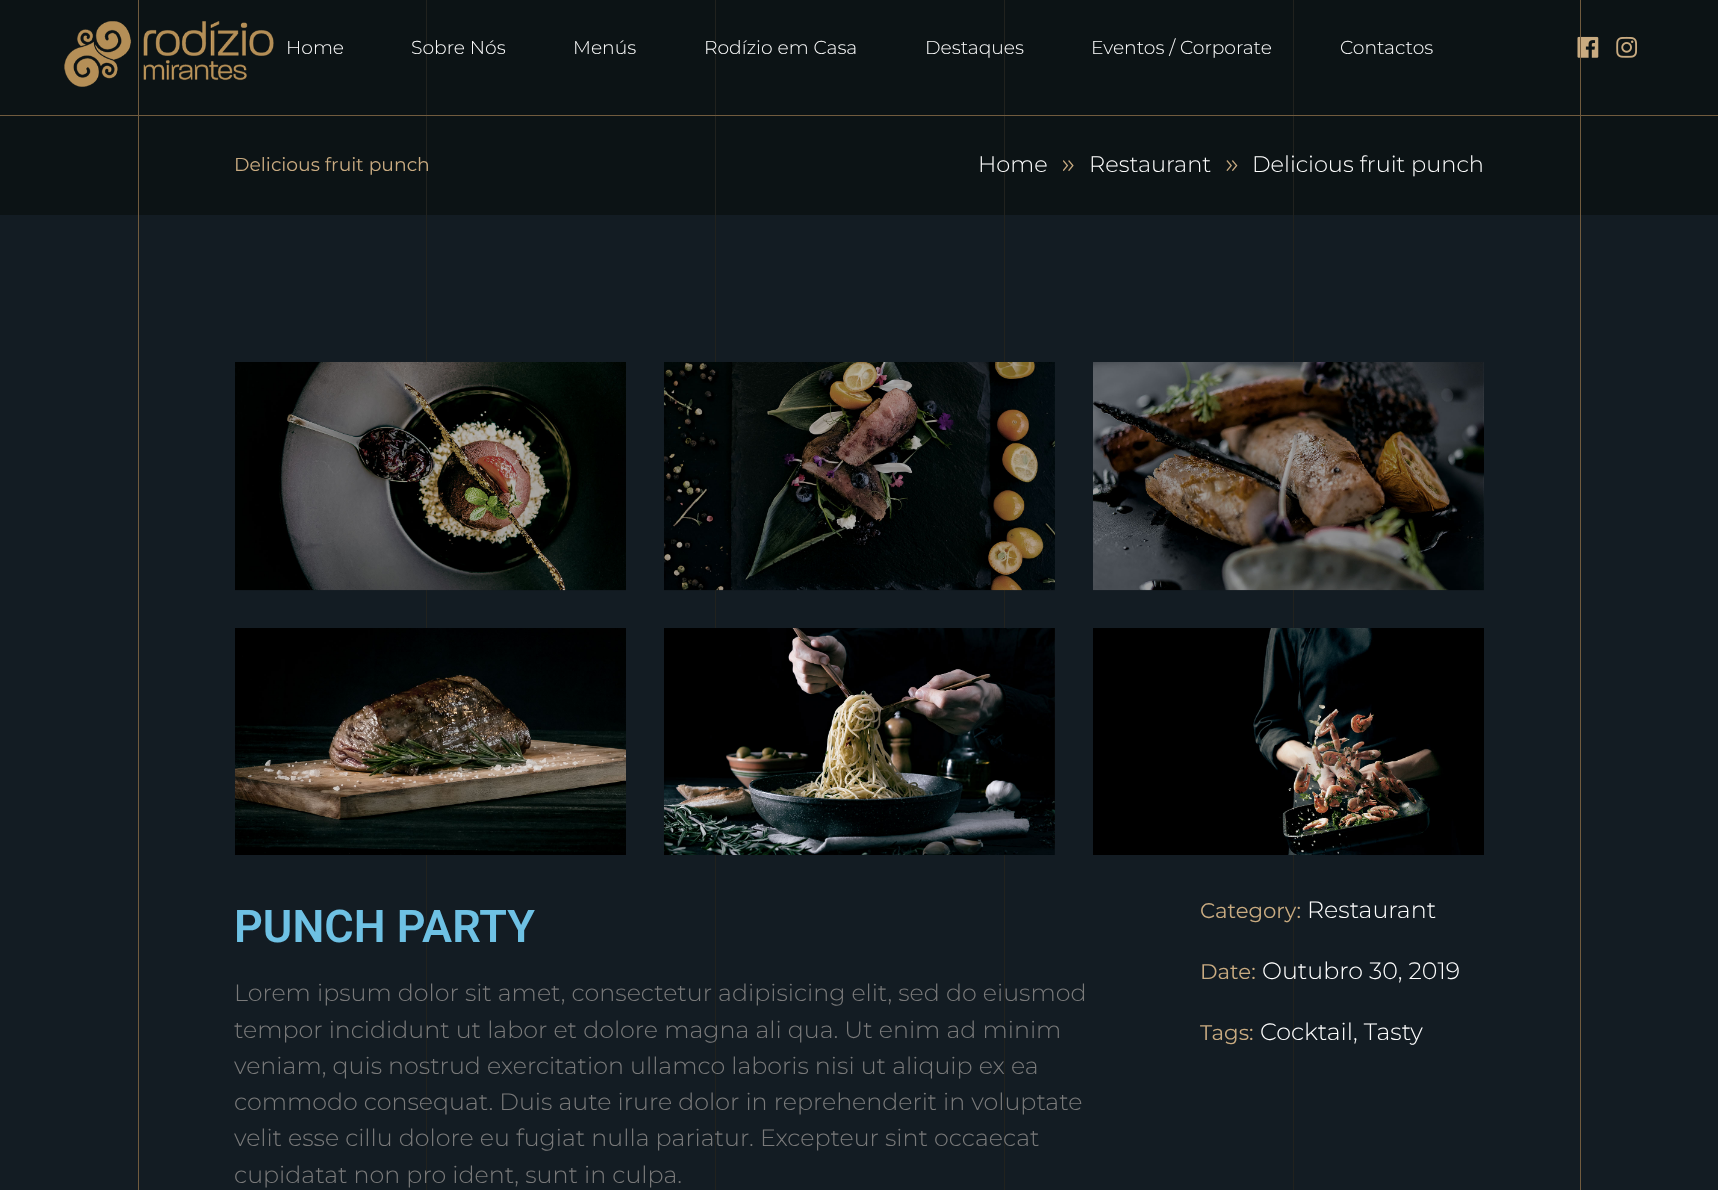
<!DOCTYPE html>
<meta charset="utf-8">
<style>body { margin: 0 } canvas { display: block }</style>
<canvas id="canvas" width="1718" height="1190"></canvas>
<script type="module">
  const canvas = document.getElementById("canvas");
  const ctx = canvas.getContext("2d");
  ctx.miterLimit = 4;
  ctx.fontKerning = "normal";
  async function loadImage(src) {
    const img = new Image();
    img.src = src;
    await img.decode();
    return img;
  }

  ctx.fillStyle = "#131c23";
  ctx.fillRect(0, 0, 1718, 1190);
  ctx.fillStyle = "#0c1315";
  ctx.fillRect(0, 0, 1718, 215);
  ctx.fillStyle = "#21221e";
  ctx.fillRect(426, 0, 1, 215);
  ctx.fillRect(715, 0, 1, 215);
  ctx.fillRect(1004, 0, 1, 215);
  ctx.fillRect(1293, 0, 1, 215);
  ctx.fillStyle = "#715b3e";
  ctx.fillRect(0, 115, 1718, 1);
  ctx.drawImage(await loadImage("img1.png"), 64, 21, 210, 66);
  ctx.fillRect(138, 0, 1, 138);
  ctx.font = "300 18.75px Montserrat";
  ctx.fillStyle = "#ffffff";
  ctx.fillText("Home", 286, 54);
  ctx.fillText("Sobre Nós", 411, 54);
  ctx.fillText("Menús", 573, 54);
  ctx.fillText("Rodízio em Casa", 704, 54);
  ctx.fillText("Destaques", 925, 54);
  ctx.fillText("Eventos / Corporate", 1091, 54);
  ctx.fillText("Contactos", 1340, 54);
  ctx.drawImage(await loadImage("img2.png"), 1577, 36, 22, 22);
  ctx.drawImage(await loadImage("img3.png"), 1616, 36, 22, 22);
  ctx.fillStyle = "#715b3e";
  ctx.fillRect(1580, 0, 1, 138);
  ctx.fillRect(138, 138, 1, 1052);
  ctx.font = "18.75px Montserrat";
  ctx.fillStyle = "#c9ab81";
  ctx.fillText("Delicious fruit punch", 234, 171);
  ctx.font = "300 22.5px Montserrat";
  ctx.fillStyle = "#ffffff";
  ctx.fillText("Home", 978, 172);
  ctx.drawImage(await loadImage("img4.png"), 1063, 160, 11, 11);
  ctx.fillText("Restaurant", 1089, 172);
  ctx.drawImage(await loadImage("img5.png"), 1226, 160, 12, 11);
  ctx.fillText("Delicious fruit punch", 1252, 172);
  ctx.fillStyle = "#21221e";
  ctx.fillRect(426, 215, 1, 975);
  ctx.fillRect(715, 215, 1, 975);
  ctx.fillRect(1004, 215, 1, 975);
  ctx.fillRect(1293, 215, 1, 975);
  ctx.drawImage(await loadImage("img6.png"), 235, 362, 391, 229);
  ctx.drawImage(await loadImage("img7.png"), 664, 362, 391, 229);
  ctx.drawImage(await loadImage("img8.png"), 1093, 362, 391, 229);
  ctx.drawImage(await loadImage("img9.png"), 235, 628, 391, 227);
  ctx.drawImage(await loadImage("img10.png"), 664, 628, 391, 227);
  ctx.drawImage(await loadImage("img11.png"), 1093, 628, 391, 227);
  ctx.font = "600 45px Roboto";
  ctx.fillStyle = "#6ec1e4";
  ctx.fillText("PUNCH PARTY", 234, 942);
  ctx.font = "300 23.75px Montserrat";
  ctx.fillStyle = "#7a7a7a";
  ctx.fillText("Lorem ipsum dolor sit amet, consectetur adipisicing elit, sed do eiusmod", 234, 1001);
  ctx.fillText("tempor incididunt ut labor et dolore magna ali qua. Ut enim ad minim", 234, 1038);
  ctx.fillText("veniam, quis nostrud exercitation ullamco laboris nisi ut aliquip ex ea", 234, 1074);
  ctx.fillText("commodo consequat. Duis aute irure dolor in reprehenderit in voluptate", 234, 1110);
  ctx.fillText("velit esse cillu dolore eu fugiat nulla pariatur. Excepteur sint occaecat", 234, 1146);
  ctx.fillText("cupidatat non pro ident, sunt in culpa.", 234, 1183);
  ctx.font = "21.25px Montserrat";
  ctx.fillStyle = "#c9ab81";
  ctx.fillText("Category:", 1200, 918);
  ctx.font = "300 23.75px Montserrat";
  ctx.fillStyle = "#ffffff";
  ctx.fillText("Restaurant", 1307, 918);
  ctx.font = "21.25px Montserrat";
  ctx.fillStyle = "#c9ab81";
  ctx.fillText("Date:", 1200, 979);
  ctx.font = "300 23.75px Montserrat";
  ctx.fillStyle = "#ffffff";
  ctx.fillText("Outubro 30, 2019", 1262, 979);
  ctx.font = "21.25px Montserrat";
  ctx.fillStyle = "#c9ab81";
  ctx.fillText("Tags:", 1200, 1040);
  ctx.font = "300 23.75px Montserrat";
  ctx.fillStyle = "#ffffff";
  ctx.fillText("Cocktail, Tasty", 1260, 1040);
  ctx.fillStyle = "#715b3e";
  ctx.fillRect(1580, 138, 1, 1052);
</script>
